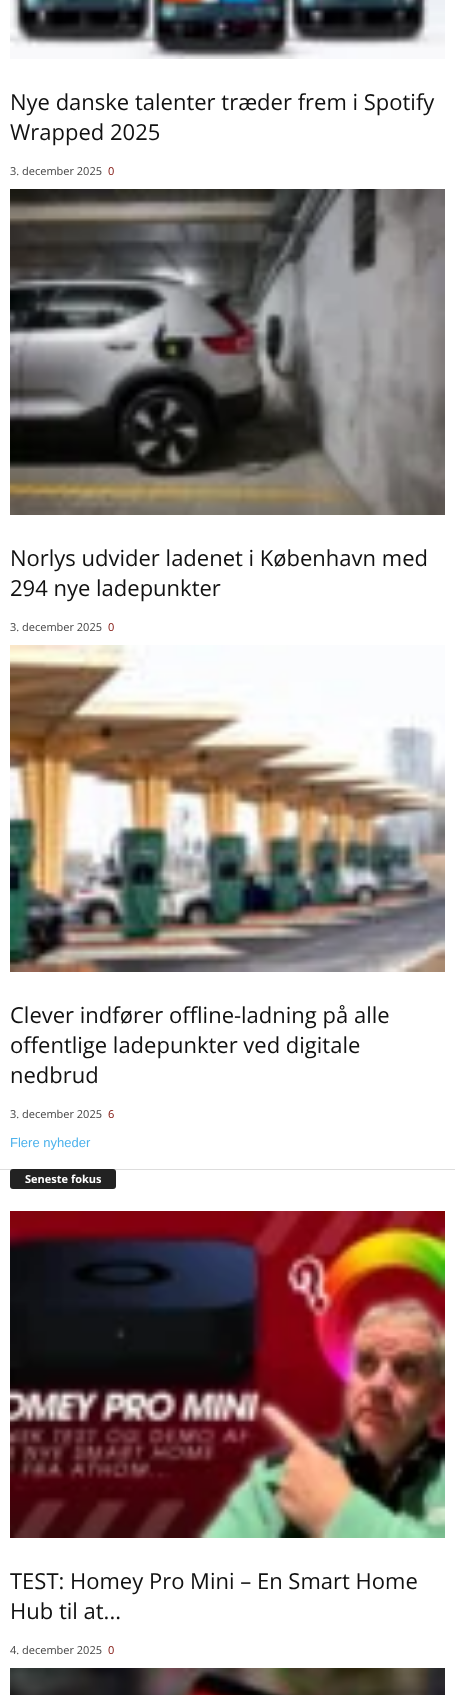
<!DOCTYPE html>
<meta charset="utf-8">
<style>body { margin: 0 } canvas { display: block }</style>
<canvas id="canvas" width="455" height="1695"></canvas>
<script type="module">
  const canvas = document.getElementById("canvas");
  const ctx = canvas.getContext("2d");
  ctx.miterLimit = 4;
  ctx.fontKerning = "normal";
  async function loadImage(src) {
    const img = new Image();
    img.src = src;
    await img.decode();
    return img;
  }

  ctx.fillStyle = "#ffffff";
  ctx.fillRect(0, 0, 455, 1695);
  ctx.drawImage(await loadImage("img1.png"), 10, 0, 435, 59);
  ctx.font = "22px Open Sans";
  ctx.fillStyle = "#111111";
  ctx.fillText("Nye danske talenter træder frem i Spotify", 10, 110);
  ctx.fillText("Wrapped 2025", 10, 140);
  ctx.font = "11px Open Sans";
  ctx.fillStyle = "#444444";
  ctx.fillText("3. december 2025", 10, 175);
  ctx.fillStyle = "#7d0d06";
  ctx.fillText("0", 108, 175);
  ctx.drawImage(await loadImage("img2.png"), 10, 189, 435, 326);
  ctx.font = "22px Open Sans";
  ctx.fillStyle = "#111111";
  ctx.fillText("Norlys udvider ladenet i København med", 10, 566);
  ctx.fillText("294 nye ladepunkter", 10, 596);
  ctx.font = "11px Open Sans";
  ctx.fillStyle = "#444444";
  ctx.fillText("3. december 2025", 10, 631);
  ctx.fillStyle = "#7d0d06";
  ctx.fillText("0", 108, 631);
  ctx.drawImage(await loadImage("img3.png"), 10, 645, 435, 327);
  ctx.font = "22px Open Sans";
  ctx.fillStyle = "#111111";
  ctx.fillText("Clever indfører offline-ladning på alle", 10, 1023);
  ctx.fillText("offentlige ladepunkter ved digitale", 10, 1053);
  ctx.fillText("nedbrud", 10, 1083);
  ctx.font = "11px Open Sans";
  ctx.fillStyle = "#444444";
  ctx.fillText("3. december 2025", 10, 1118);
  ctx.fillStyle = "#7d0d06";
  ctx.fillText("6", 108, 1118);
  ctx.font = "13px Liberation Sans";
  ctx.fillStyle = "#4db2ec";
  ctx.fillText("Flere nyheder", 10, 1147);
  ctx.fillStyle = "#dddddd";
  ctx.fillRect(0, 1169, 455, 1);
  ctx.fillStyle = "#222222";
  ctx.beginPath();
  ctx.roundRect(10, 1169, 106, 20, 3);
  ctx.fill();
  ctx.font = "bold 11px Open Sans";
  ctx.fillStyle = "#ffffff";
  ctx.fillText("Seneste fokus", 25, 1183);
  ctx.drawImage(await loadImage("img4.png"), 10, 1211, 435, 327);
  ctx.font = "22px Open Sans";
  ctx.fillStyle = "#111111";
  ctx.fillText("TEST: Homey Pro Mini – En Smart Home", 10, 1589);
  ctx.fillText("Hub til at...", 10, 1619);
  ctx.font = "11px Open Sans";
  ctx.fillStyle = "#444444";
  ctx.fillText("4. december 2025", 10, 1654);
  ctx.fillStyle = "#7d0d06";
  ctx.fillText("0", 108, 1654);
  ctx.drawImage(await loadImage("img5.png"), 10, 1668, 435, 27);
</script>
